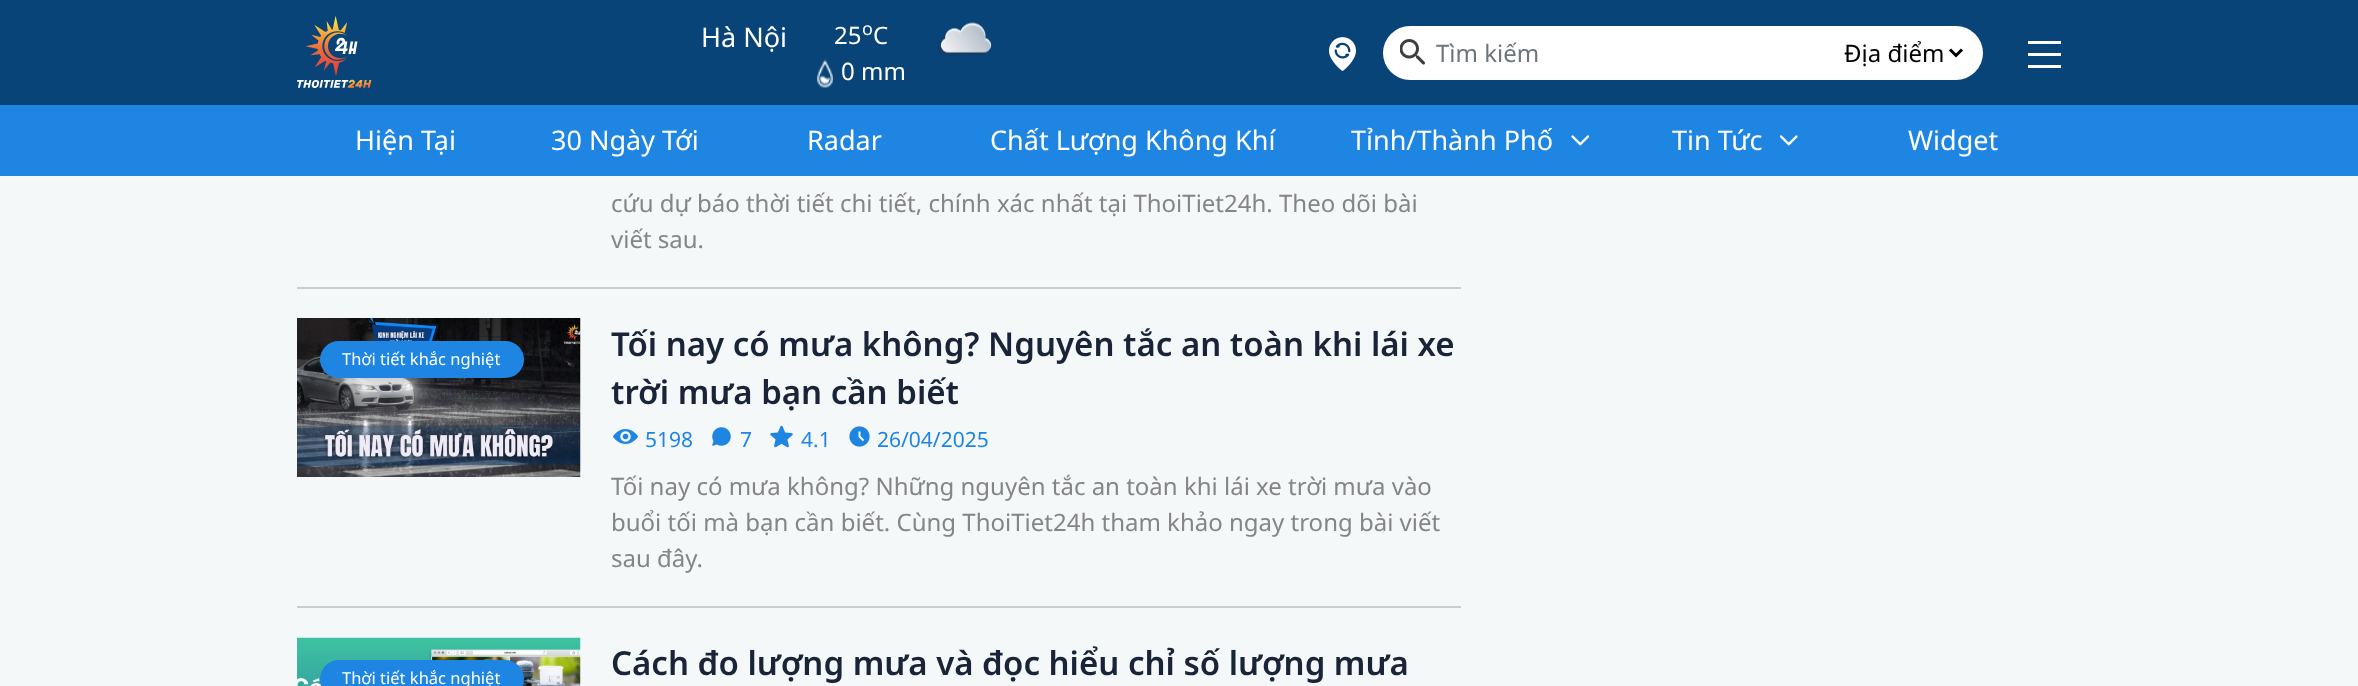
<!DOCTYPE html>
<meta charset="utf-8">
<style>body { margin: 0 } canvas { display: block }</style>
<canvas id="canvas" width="2358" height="686"></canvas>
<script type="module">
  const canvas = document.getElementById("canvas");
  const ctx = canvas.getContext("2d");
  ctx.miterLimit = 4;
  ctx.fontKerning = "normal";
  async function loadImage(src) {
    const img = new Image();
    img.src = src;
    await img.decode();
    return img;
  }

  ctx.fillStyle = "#f4f8f9";
  ctx.fillRect(0, 0, 2358, 686);
  ctx.fillStyle = "#094479";
  ctx.fillRect(0, 0, 2358, 105);
  ctx.drawImage(await loadImage("img1.png"), 297, 16, 75, 72);
  ctx.font = "27px Noto Sans";
  ctx.fillStyle = "#ffffff";
  ctx.fillText("Hà Nội", 701, 47);
  ctx.font = "24px Noto Sans";
  ctx.fillText("25", 834, 44);
  ctx.font = "18px Noto Sans";
  ctx.fillText("o", 862, 35);
  ctx.font = "24px Noto Sans";
  ctx.fillText("C", 873, 44);
  ctx.drawImage(await loadImage("img2.png"), 817, 59, 16, 29);
  ctx.fillText("0 mm", 841, 80);
  ctx.drawImage(await loadImage("img3.png"), 937, 22, 55, 34);
  ctx.drawImage(await loadImage("img4.png"), 1329, 37, 27, 34);
  ctx.beginPath();
  ctx.roundRect(1383, 26, 600, 54, 27);
  ctx.fill();
  ctx.drawImage(await loadImage("img5.png"), 1400, 39, 25, 26);
  ctx.fillStyle = "#6c757d";
  ctx.fillText("Tìm kiếm", 1436, 62);
  ctx.beginPath();
  ctx.moveTo(1950, 49.5);
  ctx.lineTo(1956, 55.5);
  ctx.lineTo(1962, 49.5);
  ctx.strokeStyle = "#000000";
  ctx.lineWidth = 3;
  ctx.stroke();
  ctx.fillStyle = "#000000";
  ctx.fillText("Địa điểm", 1844, 62);
  ctx.fillStyle = "#ffffff";
  ctx.fillRect(2028, 53, 33, 3);
  ctx.fillRect(2028, 41, 33, 3);
  ctx.fillRect(2028, 65, 33, 3);
  ctx.fillStyle = "#1e85e3";
  ctx.fillRect(0, 105, 2358, 71);
  ctx.font = "27px Noto Sans";
  ctx.fillStyle = "#ffffff";
  ctx.fillText("Hiện Tại", 355, 150);
  ctx.fillText("30 Ngày Tới", 551, 150);
  ctx.fillText("Radar", 807, 150);
  ctx.fillText("Chất Lượng Không Khí", 990, 150);
  ctx.fillText("Tỉnh/Thành Phố", 1351, 150);
  ctx.drawImage(await loadImage("img6.png"), 1571, 135, 19, 11);
  ctx.fillText("Tin Tức", 1672, 150);
  ctx.drawImage(await loadImage("img7.png"), 1779, 135, 19, 11);
  ctx.fillText("Widget", 1908, 150);
  ctx.fillStyle = "#cccccc";
  ctx.fillRect(297, 287, 1164, 2);
  ctx.font = "24px Noto Sans";
  ctx.fillStyle = "#858585";
  ctx.fillText("cứu dự báo thời tiết chi tiết, chính xác nhất tại ThoiTiet24h. Theo dõi bài", 611, 212);
  ctx.fillText("viết sau.", 611, 248);
  ctx.fillStyle = "#cccccc";
  ctx.fillRect(297, 606, 1164, 2);
  ctx.drawImage(await loadImage("img8.png"), 297, 318, 284, 159);
  ctx.fillStyle = "#1e85e3";
  ctx.beginPath();
  ctx.roundRect(320, 341, 204, 37, 18.5);
  ctx.fill();
  ctx.font = "16.5px Noto Sans";
  ctx.fillStyle = "#ffffff";
  ctx.fillText("Thời tiết khắc nghiệt", 342, 365);
  ctx.font = "600 33px Noto Sans";
  ctx.fillStyle = "#192438";
  ctx.fillText("Tối nay có mưa không? Nguyên tắc an toàn khi lái xe", 611, 356);
  ctx.fillText("trời mưa bạn cần biết", 611, 404);
  ctx.drawImage(await loadImage("img9.png"), 613, 429, 25, 15);
  ctx.font = "21px Noto Sans";
  ctx.fillStyle = "#1e85e3";
  ctx.fillText("5198", 645, 447);
  ctx.drawImage(await loadImage("img10.png"), 712, 427, 19, 19);
  ctx.fillText("7", 740, 447);
  ctx.drawImage(await loadImage("img11.png"), 770, 425, 23, 23);
  ctx.fillText("4.1", 801, 447);
  ctx.drawImage(await loadImage("img12.png"), 849, 426, 21, 21);
  ctx.fillText("26/04/2025", 877, 447);
  ctx.font = "24px Noto Sans";
  ctx.fillStyle = "#858585";
  ctx.fillText("Tối nay có mưa không? Những nguyên tắc an toàn khi lái xe trời mưa vào", 611, 495);
  ctx.fillText("buổi tối mà bạn cần biết. Cùng ThoiTiet24h tham khảo ngay trong bài viết", 611, 531);
  ctx.fillText("sau đây.", 611, 567);
  ctx.drawImage(await loadImage("img13.png"), 297, 637, 284, 49);
  ctx.fillStyle = "#1e85e3";
  ctx.beginPath();
  ctx.roundRect(320, 660, 204, 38, 19);
  ctx.fill();
  ctx.font = "16.5px Noto Sans";
  ctx.fillStyle = "#ffffff";
  ctx.fillText("Thời tiết khắc nghiệt", 342, 684);
  ctx.font = "600 33px Noto Sans";
  ctx.fillStyle = "#192438";
  ctx.fillText("Cách đo lượng mưa và đọc hiểu chỉ số lượng mưa", 611, 675);
</script>
